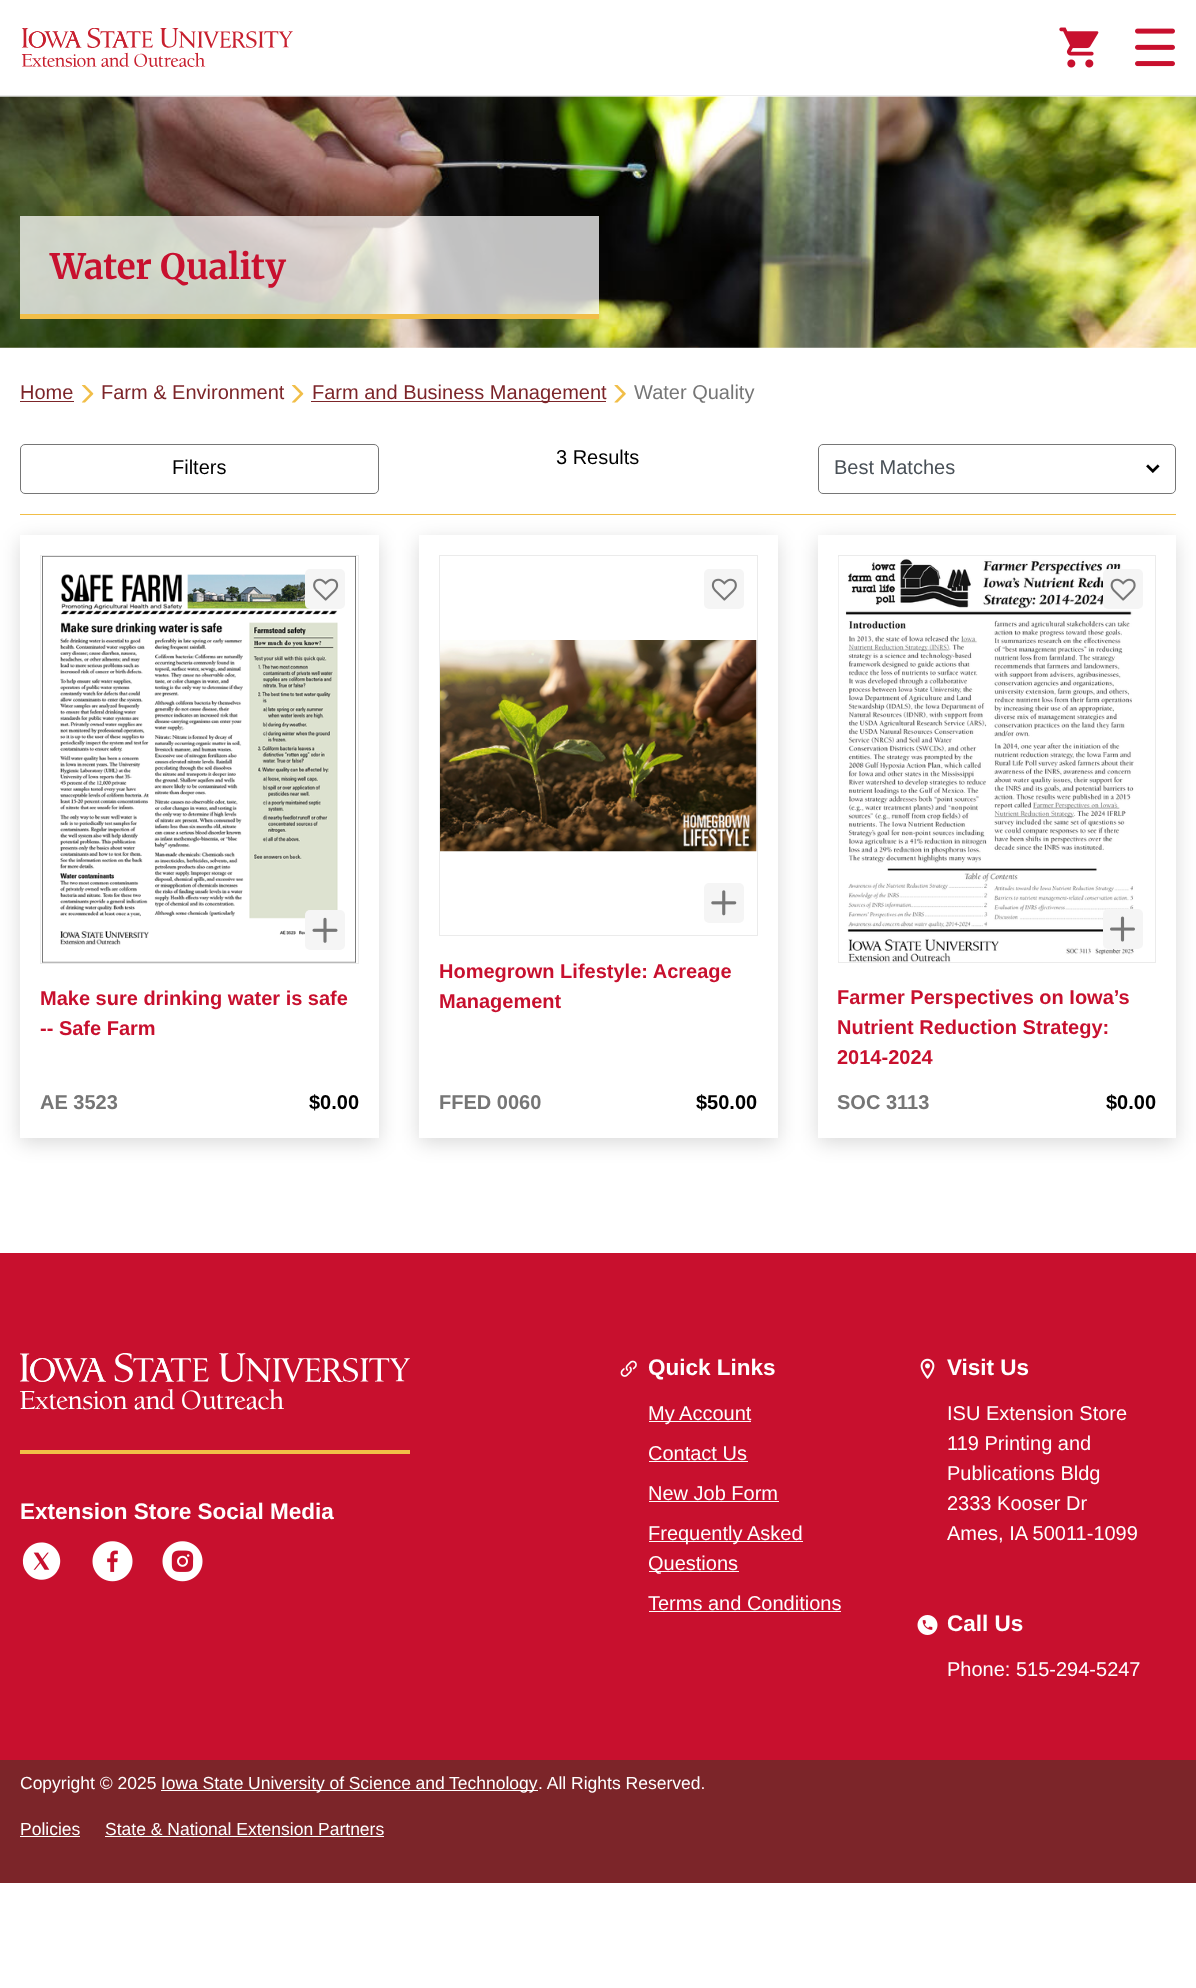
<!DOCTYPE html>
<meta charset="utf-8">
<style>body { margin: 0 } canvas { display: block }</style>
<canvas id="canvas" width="1196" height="1988"></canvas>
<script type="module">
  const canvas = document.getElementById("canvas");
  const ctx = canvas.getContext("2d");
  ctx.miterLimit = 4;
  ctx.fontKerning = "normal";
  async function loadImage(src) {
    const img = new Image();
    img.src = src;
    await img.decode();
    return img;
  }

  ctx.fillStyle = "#ffffff";
  ctx.fillRect(0, 0, 1196, 1988);
  ctx.fillStyle = "#ebebeb";
  ctx.fillRect(0, 95, 1196, 1);
  ctx.drawImage(await loadImage("img1.png"), 21, 28, 272, 39);
  ctx.drawImage(await loadImage("img2.png"), 1059, 27, 40, 41);
  ctx.drawImage(await loadImage("img3.png"), 1135, 28, 40, 39);
  ctx.drawImage(await loadImage("img4.png"), 0, 96, 1196, 252);
  ctx.fillStyle = "rgba(255, 255, 255, 0.75)";
  ctx.fillRect(20, 216, 579, 98);
  ctx.fillStyle = "#f1be48";
  ctx.fillRect(20, 314, 579, 5);
  ctx.font = "bold 35px Merriweather";
  ctx.fillStyle = "#c8102e";
  ctx.fillText("Water Quality", 50, 279);
  ctx.font = "20px Liberation Sans";
  ctx.fillStyle = "#7c2529";
  ctx.fillText("Home", 20, 399);
  ctx.fillRect(20, 401, 54, 1);
  ctx.drawImage(await loadImage("img5.png"), 81, 385, 13, 18);
  ctx.fillText("Farm & Environment", 101, 399);
  ctx.drawImage(await loadImage("img5.png"), 291, 385, 13, 18);
  ctx.fillRect(311, 401, 295, 1);
  ctx.fillText("Farm and Business Management", 312, 399);
  ctx.drawImage(await loadImage("img6.png"), 614, 385, 12, 18);
  ctx.fillStyle = "#767676";
  ctx.fillText("Water Quality", 634, 399);
  ctx.fillStyle = "#000000";
  ctx.fillText("3 Results", 556, 464);
  ctx.beginPath();
  ctx.roundRect(20.5, 444.5, 358, 49, 4.5);
  ctx.strokeStyle = "#767676";
  ctx.stroke();
  ctx.fillText("Filters", 172, 474);
  ctx.drawImage(await loadImage("img7.png"), 1146, 464, 14, 9);
  ctx.beginPath();
  ctx.roundRect(818.5, 444.5, 357, 49, 4.5);
  ctx.stroke();
  ctx.fillStyle = "#495057";
  ctx.fillText("Best Matches", 834, 474);
  ctx.fillStyle = "#f1be48";
  ctx.fillRect(20, 514, 1156, 1);
  ctx.fillStyle = "rgba(0, 0, 0, 0.15)";
  ctx.filter = "blur(10px)";
  ctx.beginPath();
  ctx.rect(20, 540, 359, 603);
  ctx.fill();
  ctx.filter = "none";
  ctx.fillStyle = "#ffffff";
  ctx.fillRect(20, 535, 359, 603);
  ctx.strokeStyle = "#ebebeb";
  ctx.strokeRect(40.5, 555.5, 318, 408);
  ctx.drawImage(await loadImage("img8.png"), 42, 556, 314, 407);
  ctx.fillStyle = "#f5f5f5";
  ctx.beginPath();
  ctx.roundRect(305, 569, 40, 40, 5);
  ctx.fill();
  ctx.drawImage(await loadImage("img9.png"), 313, 578, 26, 23);
  ctx.beginPath();
  ctx.roundRect(305, 910, 40, 40, 5);
  ctx.fill();
  ctx.drawImage(await loadImage("img10.png"), 312, 917, 26, 26);
  ctx.font = "bold 20px Liberation Sans";
  ctx.fillStyle = "#c8102e";
  ctx.fillText("Make sure drinking water is safe", 40, 1005);
  ctx.fillText("-- Safe Farm", 40, 1035);
  ctx.fillStyle = "#767676";
  ctx.fillText("AE 3523", 40, 1109);
  ctx.fillStyle = "#000000";
  ctx.fillText("$0.00", 309, 1109);
  ctx.fillStyle = "rgba(0, 0, 0, 0.15)";
  ctx.filter = "blur(10px)";
  ctx.beginPath();
  ctx.rect(419, 540, 359, 603);
  ctx.fill();
  ctx.filter = "none";
  ctx.fillStyle = "#ffffff";
  ctx.fillRect(419, 535, 359, 603);
  ctx.strokeRect(439.5, 555.5, 318, 380);
  ctx.fillStyle = "#f5f5f5";
  ctx.beginPath();
  ctx.roundRect(704, 569, 40, 40, 5);
  ctx.fill();
  ctx.drawImage(await loadImage("img11.png"), 711, 578, 26, 23);
  ctx.drawImage(await loadImage("img12.png"), 440, 640, 317, 212);
  ctx.beginPath();
  ctx.roundRect(704, 883, 40, 40, 5);
  ctx.fill();
  ctx.drawImage(await loadImage("img13.png"), 711, 890, 26, 26);
  ctx.fillStyle = "#c8102e";
  ctx.fillText("Homegrown Lifestyle: Acreage", 439, 978);
  ctx.fillText("Management", 439, 1008);
  ctx.fillStyle = "#767676";
  ctx.fillText("FFED 0060", 439, 1109);
  ctx.fillStyle = "#000000";
  ctx.fillText("$50.00", 696, 1109);
  ctx.fillStyle = "rgba(0, 0, 0, 0.15)";
  ctx.filter = "blur(10px)";
  ctx.beginPath();
  ctx.rect(818, 540, 358, 603);
  ctx.fill();
  ctx.filter = "none";
  ctx.fillStyle = "#ffffff";
  ctx.fillRect(818, 535, 358, 603);
  ctx.strokeRect(838.5, 555.5, 317, 407);
  ctx.drawImage(await loadImage("img14.png"), 838, 557, 300, 405);
  ctx.fillStyle = "#f5f5f5";
  ctx.beginPath();
  ctx.roundRect(1103, 569, 40, 40, 5);
  ctx.fill();
  ctx.drawImage(await loadImage("img15.png"), 1110, 578, 26, 23);
  ctx.beginPath();
  ctx.roundRect(1103, 909, 40, 40, 5);
  ctx.fill();
  ctx.drawImage(await loadImage("img16.png"), 1110, 916, 25, 26);
  ctx.fillStyle = "#c8102e";
  ctx.fillText("Farmer Perspectives on Iowa’s", 837, 1004);
  ctx.fillText("Nutrient Reduction Strategy:", 837, 1034);
  ctx.fillText("2014-2024", 837, 1064);
  ctx.fillStyle = "#767676";
  ctx.fillText("SOC 3113", 837, 1109);
  ctx.fillStyle = "#000000";
  ctx.fillText("$0.00", 1106, 1109);
  ctx.fillStyle = "#c8102e";
  ctx.fillRect(0, 1253, 1196, 507);
  ctx.fillStyle = "#f1be48";
  ctx.fillRect(20, 1450, 390, 4);
  ctx.drawImage(await loadImage("img17.png"), 20, 1353, 390, 57);
  ctx.font = "bold 22.5px Liberation Sans";
  ctx.fillStyle = "#ffffff";
  ctx.fillText("Extension Store Social Media", 20, 1519);
  ctx.drawImage(await loadImage("img18.png"), 22, 1542, 39, 38);
  ctx.drawImage(await loadImage("img19.png"), 92, 1541, 41, 41);
  ctx.drawImage(await loadImage("img20.png"), 162, 1541, 41, 41);
  ctx.drawImage(await loadImage("img21.png"), 620, 1360, 17, 17);
  ctx.fillText("Quick Links", 648, 1375);
  ctx.fillRect(649, 1421, 102, 1);
  ctx.font = "20px Liberation Sans";
  ctx.fillText("My Account", 648, 1420);
  ctx.fillText("Contact Us", 648, 1460);
  ctx.fillRect(649, 1461, 99, 1);
  ctx.fillText("New Job Form", 648, 1500);
  ctx.fillRect(649, 1501, 130, 1);
  ctx.fillRect(649, 1541, 154, 1);
  ctx.fillText("Frequently Asked", 648, 1540);
  ctx.fillRect(649, 1571, 90, 1);
  ctx.fillText("Questions", 648, 1570);
  ctx.fillText("Terms and Conditions", 648, 1610);
  ctx.fillRect(649, 1611, 192, 1);
  ctx.drawImage(await loadImage("img22.png"), 920, 1358, 15, 21);
  ctx.font = "bold 22.5px Liberation Sans";
  ctx.fillText("Visit Us", 947, 1375);
  ctx.font = "20px Liberation Sans";
  ctx.fillText("ISU Extension Store", 947, 1420);
  ctx.fillText("119 Printing and", 947, 1450);
  ctx.fillText("Publications Bldg", 947, 1480);
  ctx.fillText("2333 Kooser Dr", 947, 1510);
  ctx.fillText("Ames, IA 50011-1099", 947, 1540);
  ctx.drawImage(await loadImage("img23.png"), 917, 1615, 21, 20);
  ctx.font = "bold 22.5px Liberation Sans";
  ctx.fillText("Call Us", 947, 1631);
  ctx.font = "20px Liberation Sans";
  ctx.fillText("Phone: 515-294-5247", 947, 1676);
  ctx.fillStyle = "#7c2529";
  ctx.fillRect(0, 1760, 1196, 123);
  ctx.font = "17.5px Liberation Sans";
  ctx.fillStyle = "#ffffff";
  ctx.fillText("Copyright © 2025", 20, 1789);
  ctx.fillRect(161, 1790, 377, 1);
  ctx.wordSpacing = "-0.25px";
  ctx.fillText("Iowa State University of Science and Technology", 161, 1789);
  ctx.wordSpacing = "0px";
  ctx.fillText(". All Rights Reserved.", 538, 1789);
  ctx.fillText("Policies", 20, 1835);
  ctx.fillRect(20, 1836, 60, 1);
  ctx.fillText("State & National Extension Partners", 105, 1835);
  ctx.fillRect(105, 1836, 279, 1);
</script>
